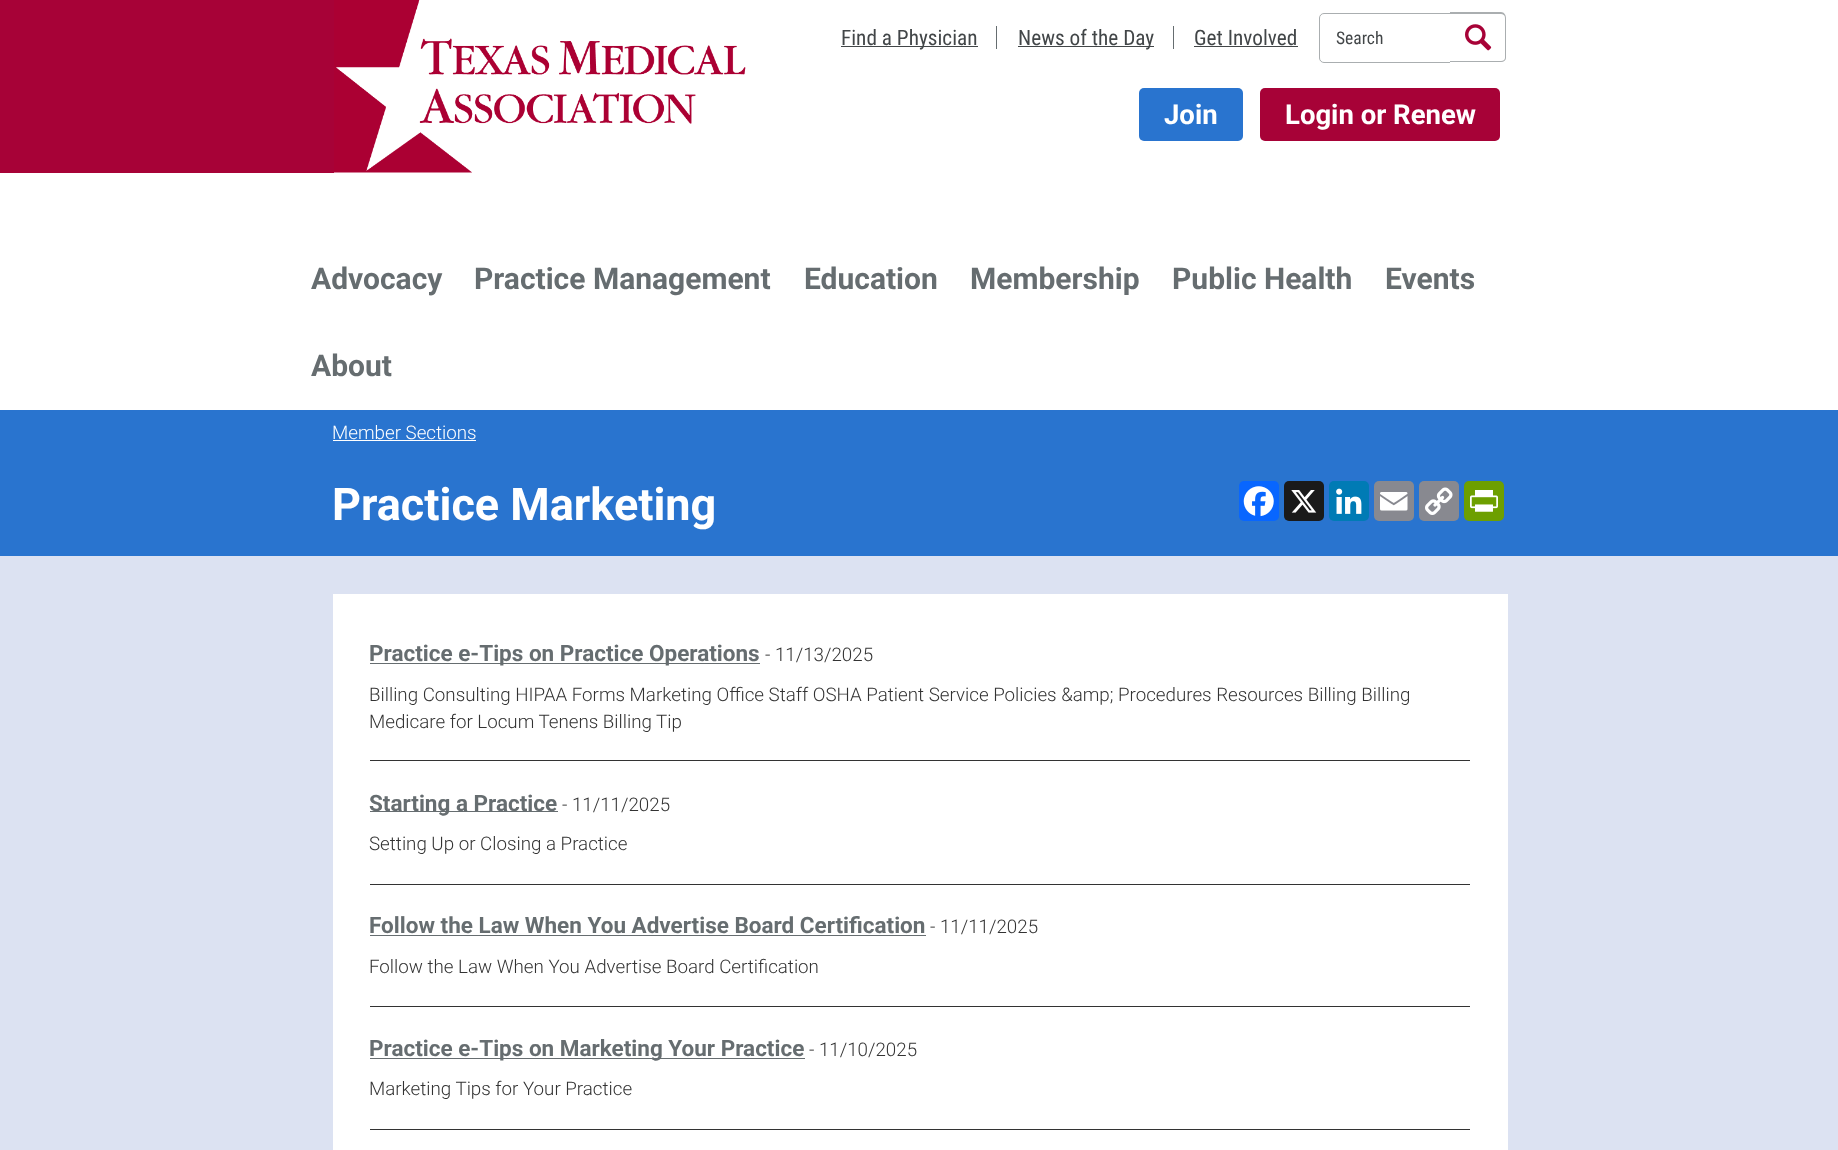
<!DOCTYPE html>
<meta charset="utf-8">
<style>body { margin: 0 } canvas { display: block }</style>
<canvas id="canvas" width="1838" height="1150"></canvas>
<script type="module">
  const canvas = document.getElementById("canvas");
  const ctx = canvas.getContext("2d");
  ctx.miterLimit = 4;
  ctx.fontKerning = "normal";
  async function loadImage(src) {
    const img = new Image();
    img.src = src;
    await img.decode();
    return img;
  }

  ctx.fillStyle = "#dce2f2";
  ctx.fillRect(0, 0, 1838, 1150);
  ctx.fillStyle = "#ffffff";
  ctx.fillRect(0, 0, 1838, 410);
  ctx.fillStyle = "#a70237";
  ctx.fillRect(0, 0, 334, 173);
  ctx.drawImage(await loadImage("img1.png"), 334, 0, 412, 173);
  ctx.fillStyle = "#424648";
  ctx.fillRect(841, 46, 137, 1);
  ctx.font = "21.25px Roboto Condensed";
  ctx.fillText("Find a Physician", 841, 45);
  ctx.fillStyle = "#666d70";
  ctx.fillRect(996, 26, 1, 23);
  ctx.fillStyle = "#424648";
  ctx.fillRect(1018, 46, 136, 1);
  ctx.fillText("News of the Day", 1018, 45);
  ctx.fillStyle = "#666d70";
  ctx.fillRect(1173, 26, 1, 23);
  ctx.fillStyle = "#424648";
  ctx.fillText("Get Involved", 1194, 45);
  ctx.fillRect(1194, 46, 104, 1);
  ctx.beginPath();
  ctx.roundRect(1319.5, 13.5, 131, 49, [4.5, 0, 0, 4.5]);
  ctx.strokeStyle = "#aaaeb0";
  ctx.stroke();
  ctx.font = "17.5px Roboto Condensed";
  ctx.fillText("Search", 1336, 44);
  ctx.fillStyle = "#ffffff";
  ctx.beginPath();
  ctx.roundRect(1450, 13, 56, 50, [0, 5, 5, 0]);
  ctx.fill();
  ctx.fillStyle = "#aaaeb0";
  ctx.beginPath();
  ctx.moveTo(1450, 12);
  ctx.lineTo(1501, 12);
  ctx.bezierCurveTo(1504, 12, 1506, 15, 1506, 18);
  ctx.lineTo(1506, 58);
  ctx.bezierCurveTo(1506, 60, 1504, 62, 1501, 62);
  ctx.lineTo(1450, 62);
  ctx.closePath();
  ctx.moveTo(1450, 14);
  ctx.lineTo(1501, 14);
  ctx.bezierCurveTo(1503, 14, 1505, 15, 1505, 18);
  ctx.lineTo(1505, 58);
  ctx.bezierCurveTo(1505, 60, 1503, 61, 1501, 61);
  ctx.lineTo(1450, 61);
  ctx.closePath();
  ctx.fill("evenodd");
  ctx.drawImage(await loadImage("img2.png"), 1465, 24, 27, 27);
  ctx.fillStyle = "#2974cf";
  ctx.beginPath();
  ctx.roundRect(1139, 88, 104, 53, 5);
  ctx.fill();
  ctx.font = "bold 27.5px Roboto";
  ctx.fillStyle = "#ffffff";
  ctx.fillText("Join", 1164, 124);
  ctx.fillStyle = "#a70237";
  ctx.beginPath();
  ctx.roundRect(1260, 88, 240, 53, 5);
  ctx.fill();
  ctx.fillStyle = "#ffffff";
  ctx.fillText("Login or Renew", 1285, 124);
  ctx.font = "bold 30px Roboto";
  ctx.fillStyle = "#666d70";
  ctx.fillText("Advocacy", 311, 289);
  ctx.fillText("Practice Management", 474, 289);
  ctx.fillText("Education", 804, 289);
  ctx.fillText("Membership", 970, 289);
  ctx.fillText("Public Health", 1172, 289);
  ctx.fillText("Events", 1385, 289);
  ctx.fillText("About", 311, 376);
  ctx.fillStyle = "#2974cf";
  ctx.fillRect(0, 410, 1838, 146);
  ctx.font = "300 18.75px Roboto";
  ctx.fillStyle = "#ffffff";
  ctx.fillText("Member Sections", 332, 439);
  ctx.fillRect(333, 440, 143, 1);
  ctx.font = "bold 45px Roboto";
  ctx.fillText("Practice Marketing", 332, 520);
  ctx.fillStyle = "#0866ff";
  ctx.beginPath();
  ctx.roundRect(1239, 481, 40, 40, 5);
  ctx.fill();
  ctx.drawImage(await loadImage("img3.png"), 1243, 486, 31, 31);
  ctx.fillStyle = "#1a1a1a";
  ctx.beginPath();
  ctx.roundRect(1284, 481, 40, 40, 5);
  ctx.fill();
  ctx.drawImage(await loadImage("img4.png"), 1291, 490, 26, 23);
  ctx.fillStyle = "#007bb5";
  ctx.beginPath();
  ctx.roundRect(1329, 481, 40, 40, 5);
  ctx.fill();
  ctx.drawImage(await loadImage("img5.png"), 1336, 488, 26, 26);
  ctx.fillStyle = "#888990";
  ctx.beginPath();
  ctx.roundRect(1374, 481, 40, 40, 5);
  ctx.fill();
  ctx.drawImage(await loadImage("img6.png"), 1380, 492, 28, 19);
  ctx.beginPath();
  ctx.roundRect(1419, 481, 40, 40, 5);
  ctx.fill();
  ctx.drawImage(await loadImage("img7.png"), 1425, 487, 28, 28);
  ctx.fillStyle = "#6d9f00";
  ctx.beginPath();
  ctx.roundRect(1464, 481, 40, 40, 5);
  ctx.fill();
  ctx.drawImage(await loadImage("img8.png"), 1470, 490, 28, 22);
  ctx.fillStyle = "#ffffff";
  ctx.fillRect(333, 594, 1175, 556);
  ctx.fillStyle = "#666d70";
  ctx.fillRect(370, 663, 390, 1);
  ctx.font = "bold 22.5px Roboto";
  ctx.fillText("Practice e-Tips on Practice Operations", 369, 661);
  ctx.font = "300 18.75px Roboto";
  ctx.fillStyle = "#333333";
  ctx.fillText("- 11/13/2025", 765, 661);
  ctx.fillText("Billing Consulting HIPAA Forms Marketing Office Staff OSHA Patient Service Policies &amp; Procedures Resources Billing Billing", 369, 701);
  ctx.fillText("Medicare for Locum Tenens Billing Tip", 369, 728);
  ctx.fillRect(370, 760, 1100, 1);
  ctx.fillStyle = "#666d70";
  ctx.fillRect(370, 811, 188, 1);
  ctx.font = "bold 22.5px Roboto";
  ctx.fillText("Starting a Practice", 369, 811);
  ctx.font = "300 18.75px Roboto";
  ctx.fillStyle = "#333333";
  ctx.fillText("- 11/11/2025", 562, 811);
  ctx.fillText("Setting Up or Closing a Practice", 369, 850);
  ctx.fillRect(370, 884, 1100, 1);
  ctx.font = "bold 22.5px Roboto";
  ctx.fillStyle = "#666d70";
  ctx.fillText("Follow the Law When You Advertise Board Certification", 369, 933);
  ctx.fillRect(370, 935, 556, 1);
  ctx.font = "300 18.75px Roboto";
  ctx.fillStyle = "#333333";
  ctx.fillText("- 11/11/2025", 930, 933);
  ctx.fillText("Follow the Law When You Advertise Board Certification", 369, 973);
  ctx.fillRect(370, 1006, 1100, 1);
  ctx.fillStyle = "#666d70";
  ctx.fillRect(370, 1058, 435, 1);
  ctx.font = "bold 22.5px Roboto";
  ctx.fillText("Practice e-Tips on Marketing Your Practice", 369, 1056);
  ctx.font = "300 18.75px Roboto";
  ctx.fillStyle = "#333333";
  ctx.fillText("- 11/10/2025", 809, 1056);
  ctx.fillText("Marketing Tips for Your Practice", 369, 1095);
  ctx.fillRect(370, 1129, 1100, 1);
</script>
